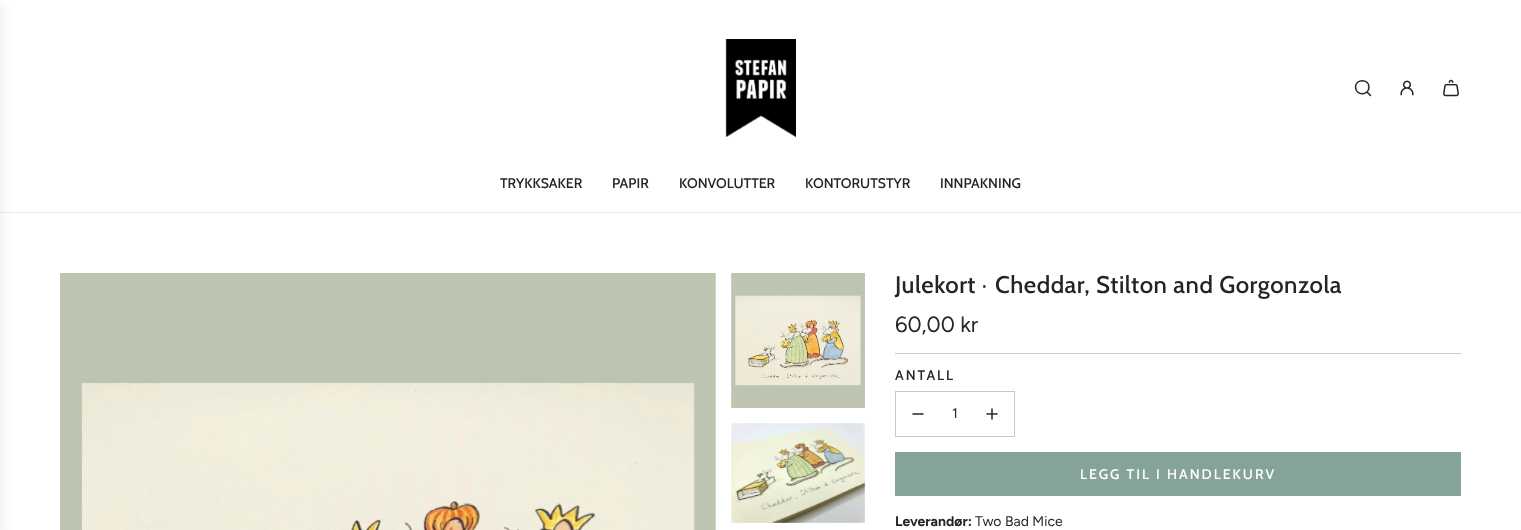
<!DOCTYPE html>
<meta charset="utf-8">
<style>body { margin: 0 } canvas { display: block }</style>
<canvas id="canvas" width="1521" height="530"></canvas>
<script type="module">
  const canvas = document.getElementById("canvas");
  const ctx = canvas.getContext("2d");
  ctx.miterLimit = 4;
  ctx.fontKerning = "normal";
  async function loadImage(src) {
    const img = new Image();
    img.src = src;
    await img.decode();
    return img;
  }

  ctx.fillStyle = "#ffffff";
  ctx.fillRect(0, 0, 1521, 530);
  ctx.fillStyle = "#eeeeee";
  ctx.fillRect(0, 212, 1521, 1);
  ctx.fillStyle = "rgba(0, 0, 0, 0.1)";
  ctx.filter = "blur(7.5px)";
  ctx.beginPath();
  ctx.rect(-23, 5, 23, 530);
  ctx.fill();
  ctx.filter = "none";
  ctx.drawImage(await loadImage("img1.png"), 725, 39, 71, 98);
  ctx.beginPath();
  ctx.moveTo(1367, 92);
  ctx.lineTo(1370.5, 95.5);
  ctx.moveTo(1355.5, 87);
  ctx.bezierCurveTo(1355.5, 96, 1369, 96, 1369, 87);
  ctx.bezierCurveTo(1369, 78.5, 1355.5, 78.5, 1355.5, 87);
  ctx.closePath();
  ctx.strokeStyle = "#242424";
  ctx.lineWidth = 1.5;
  ctx.lineCap = "round";
  ctx.lineJoin = "round";
  ctx.stroke();
  ctx.drawImage(await loadImage("img2.png"), 1400, 80, 14, 16);
  ctx.drawImage(await loadImage("img3.png"), 1443, 79, 16, 18);
  ctx.font = "500 14px Cabin";
  ctx.fillStyle = "#242424";
  ctx.fillText("TRYKKSAKER", 500, 188);
  ctx.fillText("PAPIR", 612, 188);
  ctx.fillText("KONVOLUTTER", 679, 188);
  ctx.fillText("KONTORUTSTYR", 805, 188);
  ctx.fillText("INNPAKNING", 940, 188);
  ctx.drawImage(await loadImage("img4.png"), 60, 273, 656, 257);
  ctx.drawImage(await loadImage("img5.png"), 731, 273, 134, 135);
  ctx.drawImage(await loadImage("img6.png"), 731, 423, 134, 100);
  ctx.letterSpacing = "0.5px";
  ctx.font = "500 24px Cabin";
  ctx.fillText("Julekort", 895, 293);
  ctx.font = "24px Liberation Sans";
  ctx.fillText("∙", 981, 293);
  ctx.font = "500 24px Cabin";
  ctx.fillText("Cheddar, Stilton and Gorgonzola", 995, 293);
  ctx.letterSpacing = "0px";
  ctx.font = "22px Figtree";
  ctx.fillText("60,00 kr", 895, 332);
  ctx.fillStyle = "#c8c8c8";
  ctx.fillRect(895, 353, 566, 1);
  ctx.letterSpacing = "2px";
  ctx.font = "500 14px Cabin";
  ctx.fillStyle = "#242424";
  ctx.fillText("ANTALL", 895, 380);
  ctx.strokeStyle = "#c8c8c8";
  ctx.lineWidth = 1;
  ctx.lineJoin = "miter";
  ctx.strokeRect(895.5, 391.5, 119, 45);
  ctx.beginPath();
  ctx.moveTo(913, 414);
  ctx.lineTo(923, 414);
  ctx.strokeStyle = "#242424";
  ctx.lineWidth = 1.5;
  ctx.lineJoin = "round";
  ctx.stroke();
  ctx.letterSpacing = "0px";
  ctx.font = "14px Figtree";
  ctx.fillText("1", 952, 418);
  ctx.drawImage(await loadImage("img7.png"), 986, 408, 12, 12);
  ctx.fillStyle = "#85a398";
  ctx.fillRect(895, 452, 566, 44);
  ctx.letterSpacing = "2px";
  ctx.font = "500 14px Cabin";
  ctx.fillStyle = "#ffffff";
  ctx.fillText("LEGG TIL I HANDLEKURV", 1080, 479);
  ctx.letterSpacing = "0px";
  ctx.font = "bold 14px Figtree";
  ctx.fillStyle = "#242424";
  ctx.fillText("Leverandør:", 895, 526);
  ctx.font = "14px Figtree";
  ctx.fillText("Two Bad Mice", 975, 526);
</script>
